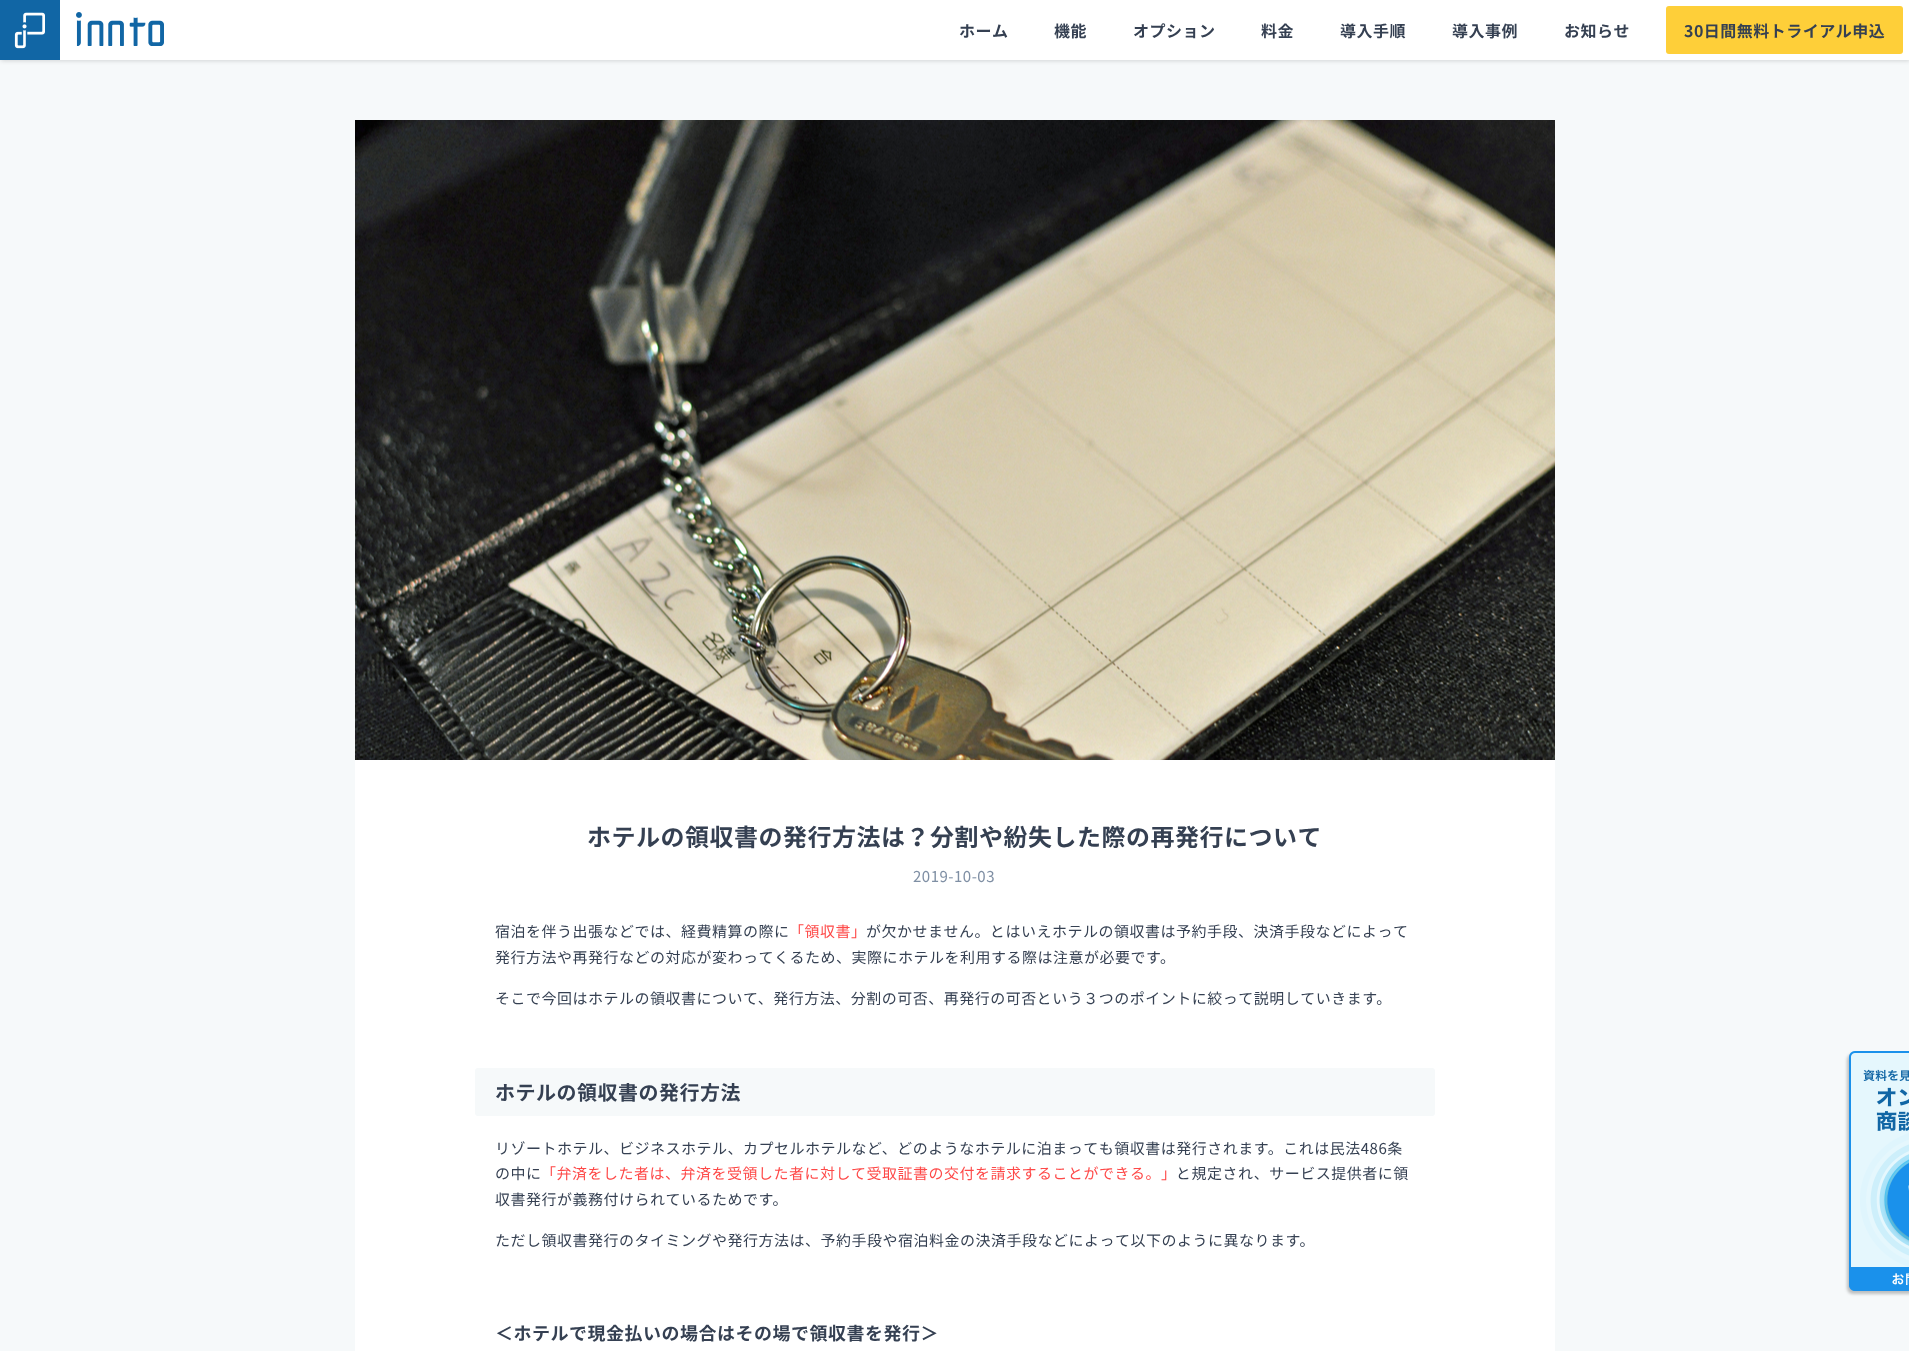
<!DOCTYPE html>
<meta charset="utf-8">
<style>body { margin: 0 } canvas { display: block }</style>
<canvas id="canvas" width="1909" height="1351"></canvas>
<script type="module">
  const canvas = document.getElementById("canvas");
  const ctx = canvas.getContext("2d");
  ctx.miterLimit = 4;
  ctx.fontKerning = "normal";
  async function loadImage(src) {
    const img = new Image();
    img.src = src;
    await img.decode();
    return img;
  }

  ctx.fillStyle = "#f6f9fa";
  ctx.fillRect(0, 0, 1909, 1351);
  ctx.fillStyle = "rgba(0, 0, 0, 0.14)";
  ctx.filter = "blur(2px)";
  ctx.beginPath();
  ctx.rect(1, 1, 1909, 60);
  ctx.fill();
  ctx.filter = "none";
  ctx.fillStyle = "#ffffff";
  ctx.fillRect(60, 0, 1849, 60);
  ctx.drawImage(await loadImage("img1.png"), 0, 0, 60, 60);
  ctx.drawImage(await loadImage("img2.png"), 76, 12, 88, 34);
  ctx.letterSpacing = "0.5px";
  ctx.font = "bold 16px Noto Sans JP";
  ctx.fillStyle = "#354052";
  ctx.fillText("ホーム", 959, 37);
  ctx.fillText("機能", 1054, 37);
  ctx.fillText("オプション", 1133, 37);
  ctx.fillText("料金", 1261, 37);
  ctx.fillText("導入手順", 1340, 37);
  ctx.fillText("導入事例", 1452, 37);
  ctx.fillText("お知らせ", 1564, 37);
  ctx.fillStyle = "#fecf39";
  ctx.beginPath();
  ctx.roundRect(1666, 6, 237, 48, 3);
  ctx.fill();
  ctx.fillStyle = "#354052";
  ctx.fillText("30日間無料トライアル申込", 1684, 37);
  ctx.fillStyle = "#ffffff";
  ctx.fillRect(355, 760, 1200, 591);
  ctx.drawImage(await loadImage("img3.png"), 355, 120, 1200, 640);
  ctx.font = "bold 24px Noto Sans JP";
  ctx.fillStyle = "#354052";
  ctx.fillText("ホテルの領収書の発行方法は？分割や紛失した際の再発行について", 587, 846);
  ctx.font = "15px Noto Sans JP";
  ctx.fillStyle = "#7f8fa4";
  ctx.fillText("2019-10-03", 913, 882);
  ctx.fillStyle = "#354052";
  ctx.fillText("宿泊を伴う出張などでは、経費精算の際に", 495, 937);
  ctx.fillStyle = "#fe4948";
  ctx.fillText("「領収書」", 789, 937);
  ctx.fillStyle = "#354052";
  ctx.fillText("が欠かせません。とはいえホテルの領収書は予約手段、決済手段などによって", 866, 937);
  ctx.fillText("発行方法や再発行などの対応が変わってくるため、実際にホテルを利用する際は注意が必要です。", 495, 963);
  ctx.fillText("そこで今回はホテルの領収書について、発行方法、分割の可否、再発行の可否という３つのポイントに絞って説明していきます。", 495, 1004);
  ctx.fillStyle = "#f6f9fa";
  ctx.beginPath();
  ctx.roundRect(475, 1068, 960, 48, 3);
  ctx.fill();
  ctx.font = "bold 20px Noto Sans JP";
  ctx.fillStyle = "#354052";
  ctx.fillText("ホテルの領収書の発行方法", 495, 1100);
  ctx.font = "15px Noto Sans JP";
  ctx.fillText("リゾートホテル、ビジネスホテル、カプセルホテルなど、どのようなホテルに泊まっても領収書は発行されます。これは民法486条", 495, 1154);
  ctx.fillText("の中に", 495, 1179);
  ctx.fillStyle = "#fe4948";
  ctx.fillText("「弁済をした者は、弁済を受領した者に対して受取証書の交付を請求することができる。」", 541, 1179);
  ctx.fillStyle = "#354052";
  ctx.fillText("と規定され、サービス提供者に領", 1176, 1179);
  ctx.fillText("収書発行が義務付けられているためです。", 495, 1205);
  ctx.fillText("ただし領収書発行のタイミングや発行方法は、予約手段や宿泊料金の決済手段などによって以下のように異なります。", 495, 1246);
  ctx.font = "bold 18px Noto Sans JP";
  ctx.fillText("＜ホテルで現金払いの場合はその場で領収書を発行＞", 495, 1340);
  ctx.fillStyle = "rgba(0, 0, 0, 0.23)";
  ctx.filter = "blur(1.5px)";
  ctx.beginPath();
  ctx.roundRect(1847, 1054, 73, 240, 6);
  ctx.fill();
  ctx.filter = "none";
  ctx.drawImage(await loadImage("img4.png"), 1849, 1051, 60, 240);
</script>
